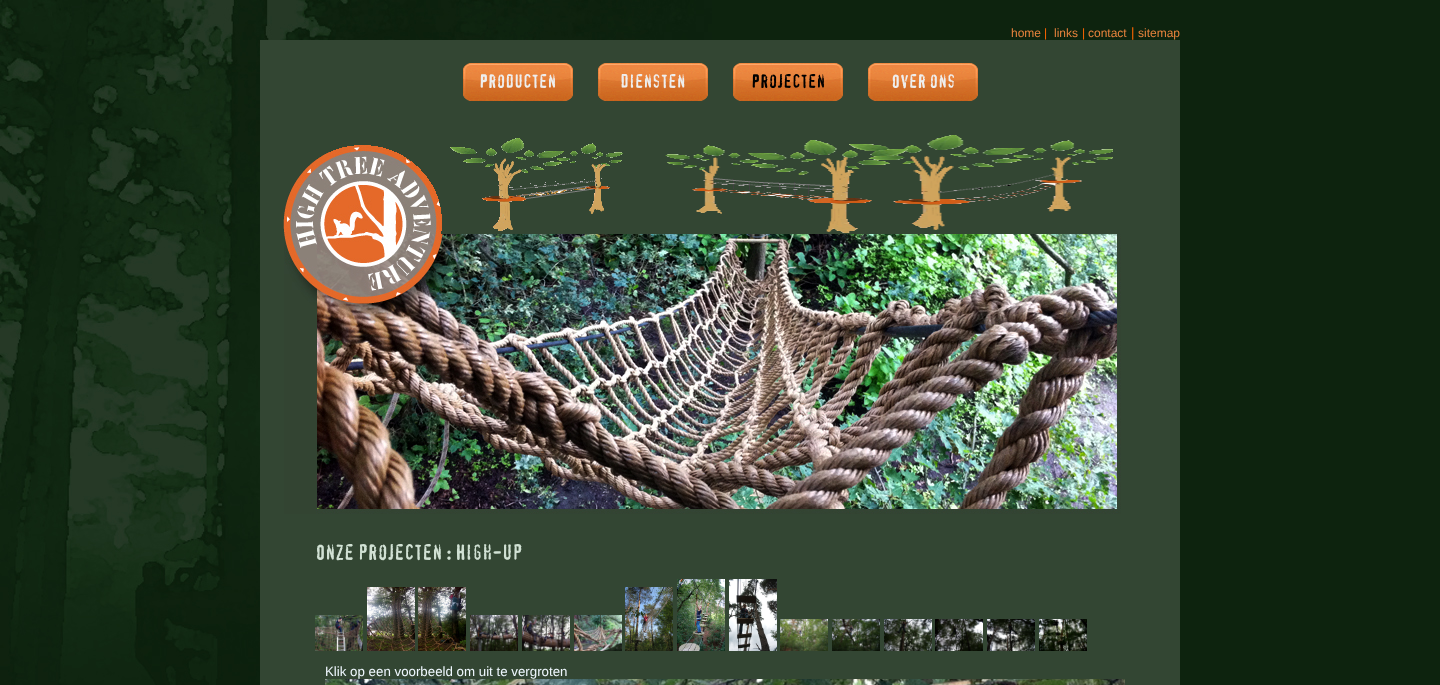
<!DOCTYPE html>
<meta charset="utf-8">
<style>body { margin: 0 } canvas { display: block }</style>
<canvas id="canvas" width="1440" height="685"></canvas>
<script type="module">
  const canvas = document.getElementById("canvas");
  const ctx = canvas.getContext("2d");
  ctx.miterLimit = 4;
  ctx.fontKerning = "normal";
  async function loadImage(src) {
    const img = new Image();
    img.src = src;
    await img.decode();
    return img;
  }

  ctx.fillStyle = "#ffffff";
  ctx.fillRect(0, 0, 1440, 685);
  ctx.drawImage(await loadImage("img1.png"), 0, 0, 1440, 685);
  ctx.font = "12px Liberation Sans";
  ctx.fillStyle = "#e8833d";
  ctx.fillText("home", 1011, 37);
  ctx.fillStyle = "#ff6600";
  ctx.fillText("|", 1044, 37);
  ctx.fillStyle = "#e8833d";
  ctx.fillText("links", 1054, 37);
  ctx.fillStyle = "#ff6600";
  ctx.fillText("|", 1082, 37);
  ctx.fillStyle = "#e8833d";
  ctx.fillText("contact", 1088, 37);
  ctx.font = "13.3px Liberation Sans";
  ctx.fillStyle = "#ff6600";
  ctx.fillText("|", 1131, 37);
  ctx.font = "12px Liberation Sans";
  ctx.fillStyle = "#e8833d";
  ctx.fillText("sitemap", 1138, 37);
  ctx.fillStyle = "#334633";
  ctx.fillRect(260, 40, 920, 645);
  ctx.drawImage(await loadImage("img2.png"), 463, 63, 110, 38);
  ctx.font = "bold 17.5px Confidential";
  ctx.fillStyle = "#eeeeee";
  ctx.fillText("Producten", 479, 88);
  ctx.drawImage(await loadImage("img2.png"), 598, 63, 110, 38);
  ctx.fillText("Diensten", 620, 88);
  ctx.drawImage(await loadImage("img2.png"), 733, 63, 110, 38);
  ctx.fillStyle = "#000000";
  ctx.fillText("Projecten", 751, 88);
  ctx.drawImage(await loadImage("img2.png"), 868, 63, 110, 38);
  ctx.fillStyle = "#eeeeee";
  ctx.fillText("Over ons", 891, 88);
  ctx.drawImage(await loadImage("img3.png"), 283, 145, 159, 89);
  ctx.drawImage(await loadImage("img4.png"), 450, 135, 663, 98);
  ctx.drawImage(await loadImage("img5.png"), 284, 234, 837, 280);
  ctx.font = "bold 20px Confidential";
  ctx.fillStyle = "#d1e1d4";
  ctx.fillText("Onze projecten : High-up", 315, 560);
  ctx.drawImage(await loadImage("img6.png"), 315, 615, 48, 36);
  ctx.drawImage(await loadImage("img7.png"), 367, 587, 48, 64);
  ctx.drawImage(await loadImage("img8.png"), 418, 587, 48, 64);
  ctx.drawImage(await loadImage("img9.png"), 470, 615, 48, 36);
  ctx.drawImage(await loadImage("img10.png"), 522, 615, 48, 36);
  ctx.drawImage(await loadImage("img11.png"), 574, 615, 48, 36);
  ctx.drawImage(await loadImage("img12.png"), 625, 587, 48, 64);
  ctx.drawImage(await loadImage("img13.png"), 677, 579, 48, 72);
  ctx.drawImage(await loadImage("img14.png"), 729, 579, 48, 72);
  ctx.drawImage(await loadImage("img15.png"), 780, 619, 48, 32);
  ctx.drawImage(await loadImage("img16.png"), 832, 619, 48, 32);
  ctx.drawImage(await loadImage("img17.png"), 884, 619, 48, 32);
  ctx.drawImage(await loadImage("img18.png"), 935, 619, 48, 32);
  ctx.drawImage(await loadImage("img19.png"), 987, 619, 48, 32);
  ctx.drawImage(await loadImage("img20.png"), 1039, 619, 48, 32);
  ctx.font = "13.3px Liberation Sans";
  ctx.fillStyle = "#f0f8ff";
  ctx.fillText("Klik op een voorbeeld om uit te vergroten", 325, 676);
  ctx.drawImage(await loadImage("img21.png"), 325, 679, 800, 6);
</script>
